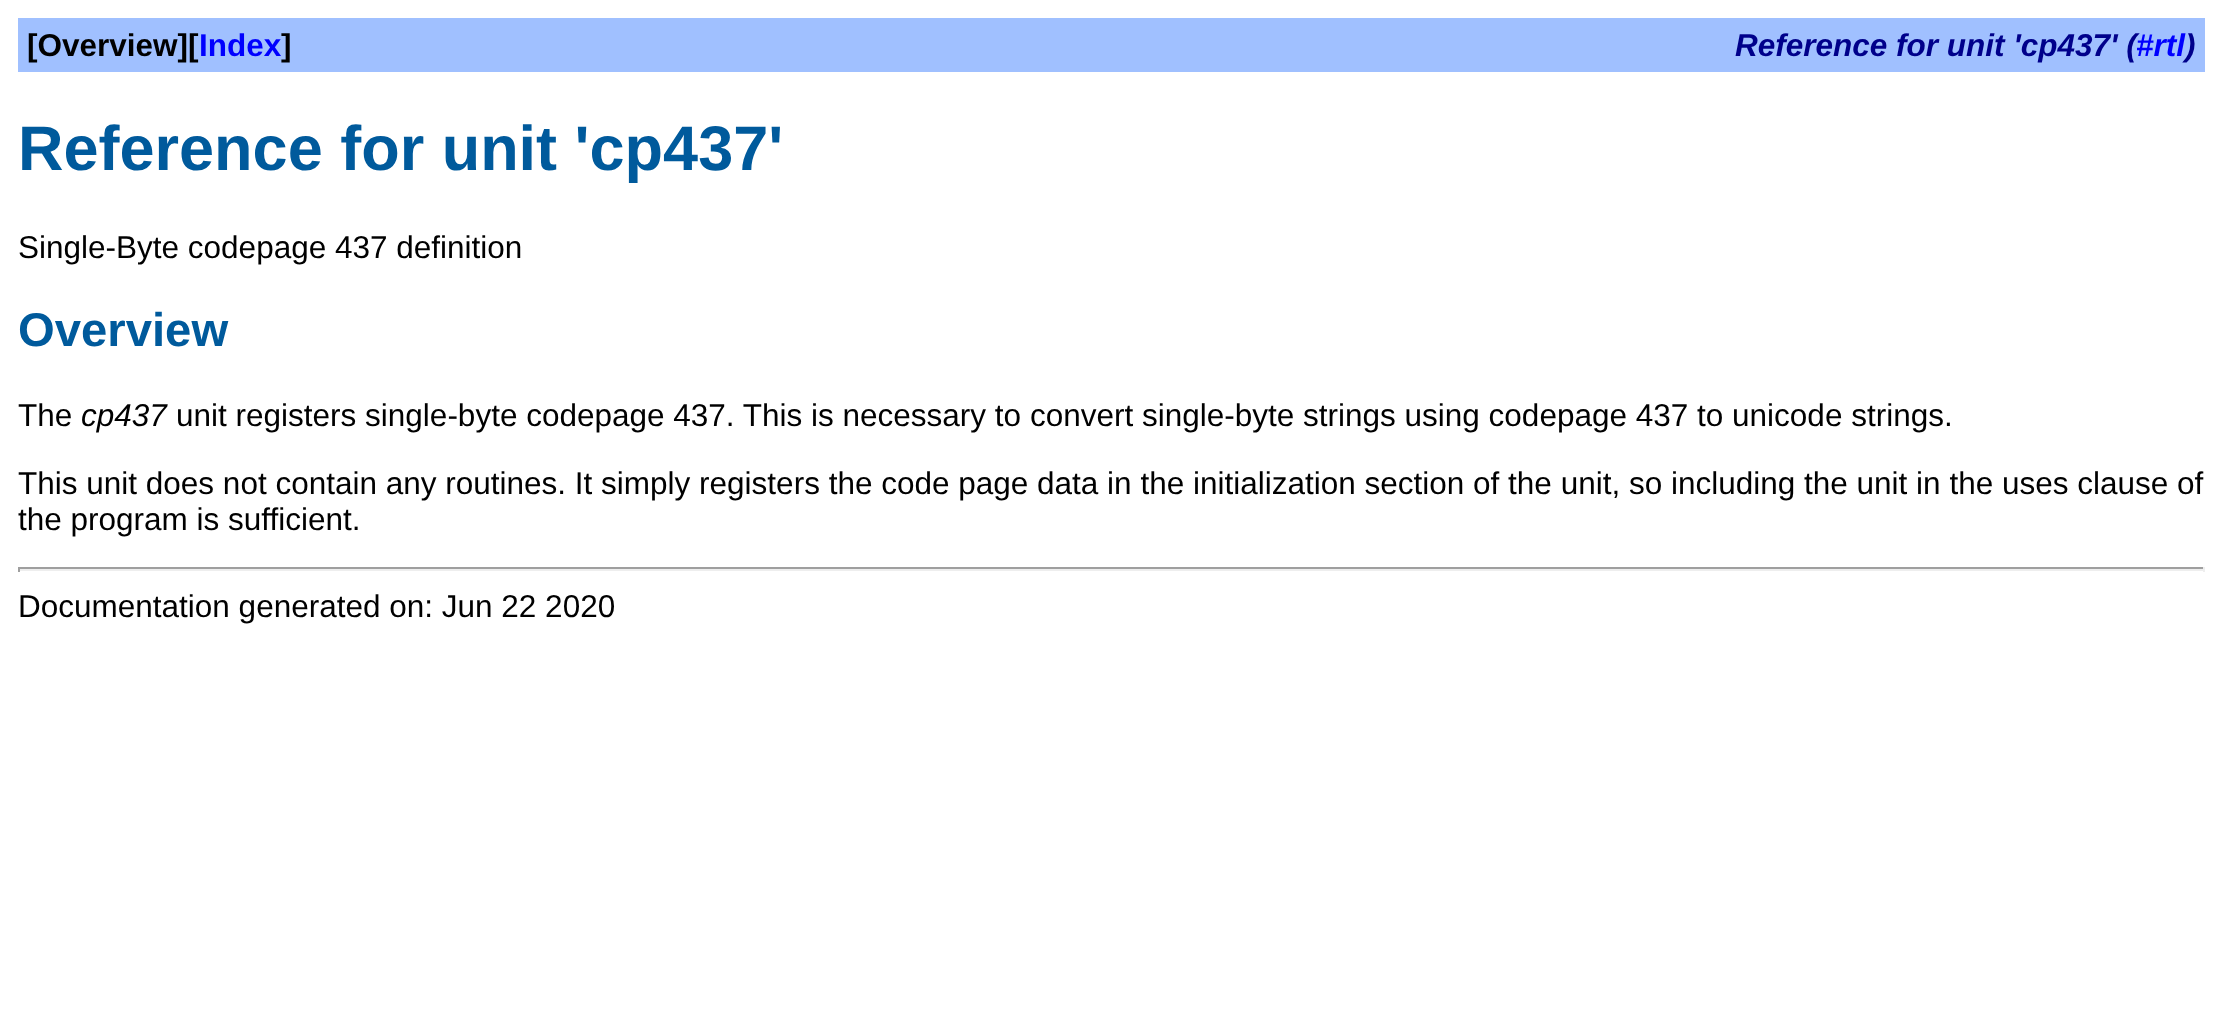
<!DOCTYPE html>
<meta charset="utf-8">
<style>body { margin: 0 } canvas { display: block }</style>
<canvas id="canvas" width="2223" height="1011"></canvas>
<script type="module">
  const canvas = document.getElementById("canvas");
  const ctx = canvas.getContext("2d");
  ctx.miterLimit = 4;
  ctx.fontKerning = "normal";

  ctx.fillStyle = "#ffffff";
  ctx.fillRect(0, 0, 2223, 1011);
  ctx.fillStyle = "#a0c0ff";
  ctx.fillRect(18, 18, 2187, 54);
  ctx.font = "bold 31.5px Liberation Sans";
  ctx.fillStyle = "#000000";
  ctx.fillText("[Overview][", 27, 56);
  ctx.fillStyle = "#0000ff";
  ctx.fillText("Index", 199, 56);
  ctx.fillStyle = "#000000";
  ctx.fillText("]", 281, 56);
  ctx.font = "italic bold 31.5px Liberation Sans";
  ctx.fillStyle = "#00008b";
  ctx.fillText("Reference for unit 'cp437' (", 1735, 56);
  ctx.fillStyle = "#0000ff";
  ctx.fillText("#rtl", 2136, 56);
  ctx.fillStyle = "#00008b";
  ctx.fillText(")", 2185, 56);
  ctx.font = "bold 63px Liberation Sans";
  ctx.fillStyle = "#005a9c";
  ctx.fillText("Reference for unit 'cp437'", 18, 170);
  ctx.font = "31.5px Liberation Sans";
  ctx.fillStyle = "#000000";
  ctx.fillText("Single-Byte codepage 437 definition", 18, 258);
  ctx.font = "bold 47.25px Liberation Sans";
  ctx.fillStyle = "#005a9c";
  ctx.fillText("Overview", 18, 346);
  ctx.font = "31.5px Liberation Sans";
  ctx.fillStyle = "#000000";
  ctx.fillText("The", 18, 426);
  ctx.font = "italic 31.5px Liberation Sans";
  ctx.fillText("cp437", 81, 426);
  ctx.font = "31.5px Liberation Sans";
  ctx.fillText("unit registers single-byte codepage 437. This is necessary to convert single-byte strings using codepage 437 to unicode strings.", 176, 426);
  ctx.fillText("This unit does not contain any routines. It simply registers the code page data in the initialization section of the unit, so including the unit in the uses clause of", 18, 494);
  ctx.fillText("the program is sufficient.", 18, 530);
  ctx.fillStyle = "#9f9f9f";
  ctx.fillRect(18, 567, 2187, 2);
  ctx.fillStyle = "#eeeeee";
  ctx.fillRect(2203, 567, 2, 5);
  ctx.fillRect(18, 569, 2187, 2);
  ctx.fillStyle = "#9f9f9f";
  ctx.fillRect(18, 567, 2, 5);
  ctx.fillStyle = "#000000";
  ctx.fillText("Documentation generated on: Jun 22 2020", 18, 617);
</script>
